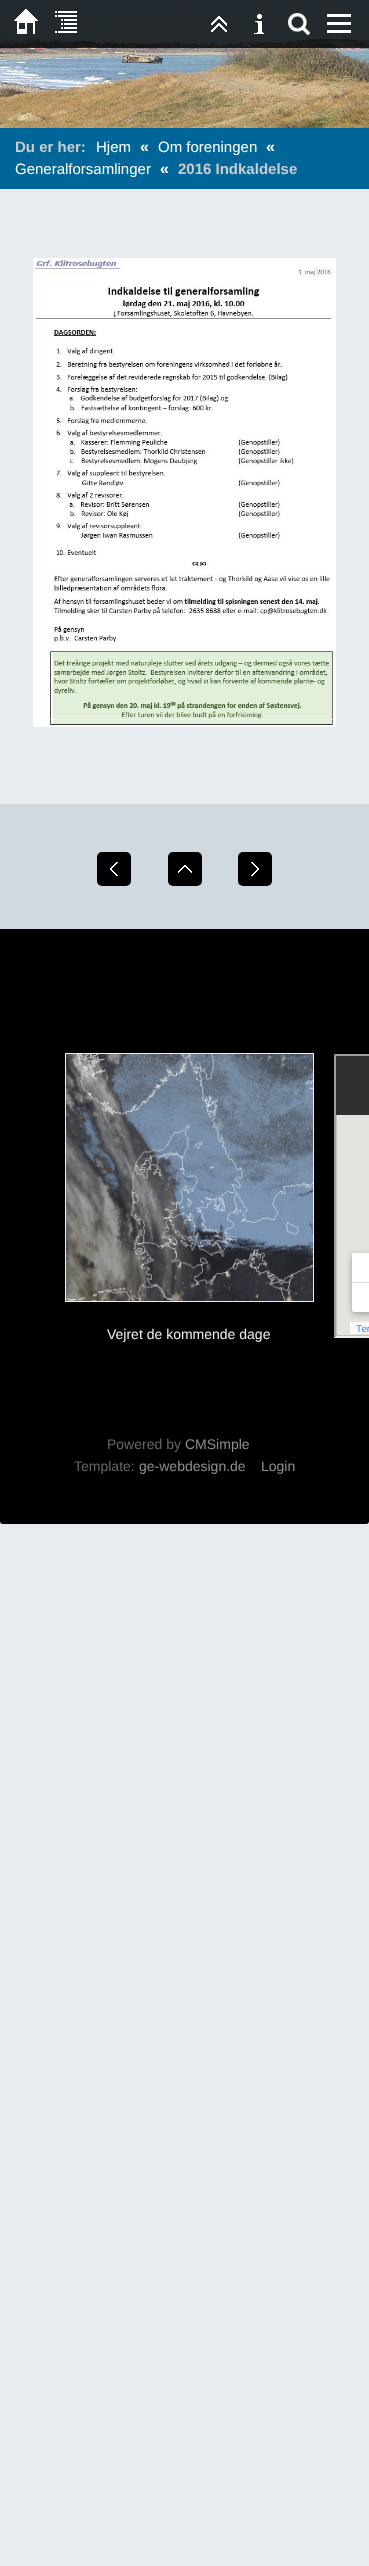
<!DOCTYPE html>
<meta charset="utf-8">
<style>body { margin: 0 } canvas { display: block }</style>
<canvas id="canvas" width="369" height="2566"></canvas>
<script type="module">
  const canvas = document.getElementById("canvas");
  const ctx = canvas.getContext("2d");
  ctx.miterLimit = 4;
  ctx.fontKerning = "normal";
  async function loadImage(src) {
    const img = new Image();
    img.src = src;
    await img.decode();
    return img;
  }

  ctx.fillStyle = "#e6ecef";
  ctx.fillRect(0, 0, 369, 2566);
  ctx.drawImage(await loadImage("img1.png"), 0, 0, 369, 128);
  ctx.fillStyle = "rgba(0, 0, 0, 0.8)";
  ctx.fillRect(0, 0, 369, 48);
  ctx.drawImage(await loadImage("img2.png"), 14, 9, 24, 25);
  ctx.drawImage(await loadImage("img3.png"), 55, 11, 22, 22);
  ctx.drawImage(await loadImage("img4.png"), 211, 16, 16, 16);
  ctx.drawImage(await loadImage("img5.png"), 254, 14, 10, 20);
  ctx.drawImage(await loadImage("img6.png"), 288, 13, 22, 22);
  ctx.drawImage(await loadImage("img7.png"), 327, 14, 24, 19);
  ctx.fillStyle = "#006699";
  ctx.fillRect(0, 128, 369, 61);
  ctx.font = "bold 15px Liberation Sans";
  ctx.fillStyle = "#cccccc";
  ctx.fillText("Du er her:", 15, 152);
  ctx.font = "15px Liberation Sans";
  ctx.fillStyle = "#ffffff";
  ctx.fillText("Hjem", 96, 152);
  ctx.font = "bold 16px Liberation Sans";
  ctx.fillText("«", 140, 152);
  ctx.font = "15px Liberation Sans";
  ctx.fillText("Om foreningen", 158, 152);
  ctx.font = "bold 16px Liberation Sans";
  ctx.fillText("«", 266, 152);
  ctx.font = "15px Liberation Sans";
  ctx.fillText("Generalforsamlinger", 15, 174);
  ctx.font = "bold 16px Liberation Sans";
  ctx.fillText("«", 160, 174);
  ctx.font = "bold 15px Liberation Sans";
  ctx.fillStyle = "#cccccc";
  ctx.fillText("2016 Indkaldelse", 178, 174);
  ctx.drawImage(await loadImage("img8.png"), 33, 258, 303, 469);
  ctx.fillStyle = "#d0d9df";
  ctx.fillRect(0, 804, 369, 125);
  ctx.fillStyle = "#000000";
  ctx.beginPath();
  ctx.roundRect(97, 852, 34, 34, 5);
  ctx.fill();
  ctx.beginPath();
  ctx.roundRect(168, 852, 34, 34, 5);
  ctx.fill();
  ctx.beginPath();
  ctx.roundRect(238, 852, 34, 34, 5);
  ctx.fill();
  ctx.drawImage(await loadImage("img9.png"), 110, 862, 8, 14);
  ctx.drawImage(await loadImage("img10.png"), 178, 865, 14, 8);
  ctx.drawImage(await loadImage("img11.png"), 251, 862, 8, 14);
  ctx.beginPath();
  ctx.roundRect(0, 929, 369, 595, [0, 0, 3, 3]);
  ctx.fill();
  ctx.strokeStyle = "#eeeeee";
  ctx.strokeRect(65.5, 1053.5, 248, 248);
  ctx.drawImage(await loadImage("img12.png"), 66, 1054, 247, 247);
  ctx.font = "14px Liberation Sans";
  ctx.fillStyle = "#eeeeee";
  ctx.fillText("Vejret de kommende dage", 107, 1339);
  ctx.fillStyle = "#9f9f9f";
  ctx.beginPath();
  ctx.moveTo(334, 1054);
  ctx.lineTo(369, 1054);
  ctx.lineTo(369, 1056);
  ctx.lineTo(336, 1056);
  ctx.closePath();
  ctx.fill();
  ctx.fillStyle = "#eeeeee";
  ctx.beginPath();
  ctx.moveTo(369, 1336);
  ctx.lineTo(369, 1338);
  ctx.lineTo(334, 1338);
  ctx.lineTo(336, 1336);
  ctx.closePath();
  ctx.fill();
  ctx.fillStyle = "#9f9f9f";
  ctx.beginPath();
  ctx.moveTo(334, 1338);
  ctx.lineTo(334, 1054);
  ctx.lineTo(336, 1056);
  ctx.lineTo(336, 1336);
  ctx.closePath();
  ctx.fill();
  ctx.drawImage(await loadImage("img13.png"), 336, 1056, 33, 280);
  ctx.fillStyle = "#666666";
  ctx.fillText("Powered by", 107, 1449);
  ctx.fillStyle = "#8f8f8f";
  ctx.fillText("CMSimple", 185, 1449);
  ctx.fillStyle = "#666666";
  ctx.fillText("Template:", 74, 1471);
  ctx.fillStyle = "#8f8f8f";
  ctx.fillText("ge-webdesign.de", 139, 1471);
  ctx.fillText("Login", 261, 1471);
</script>
